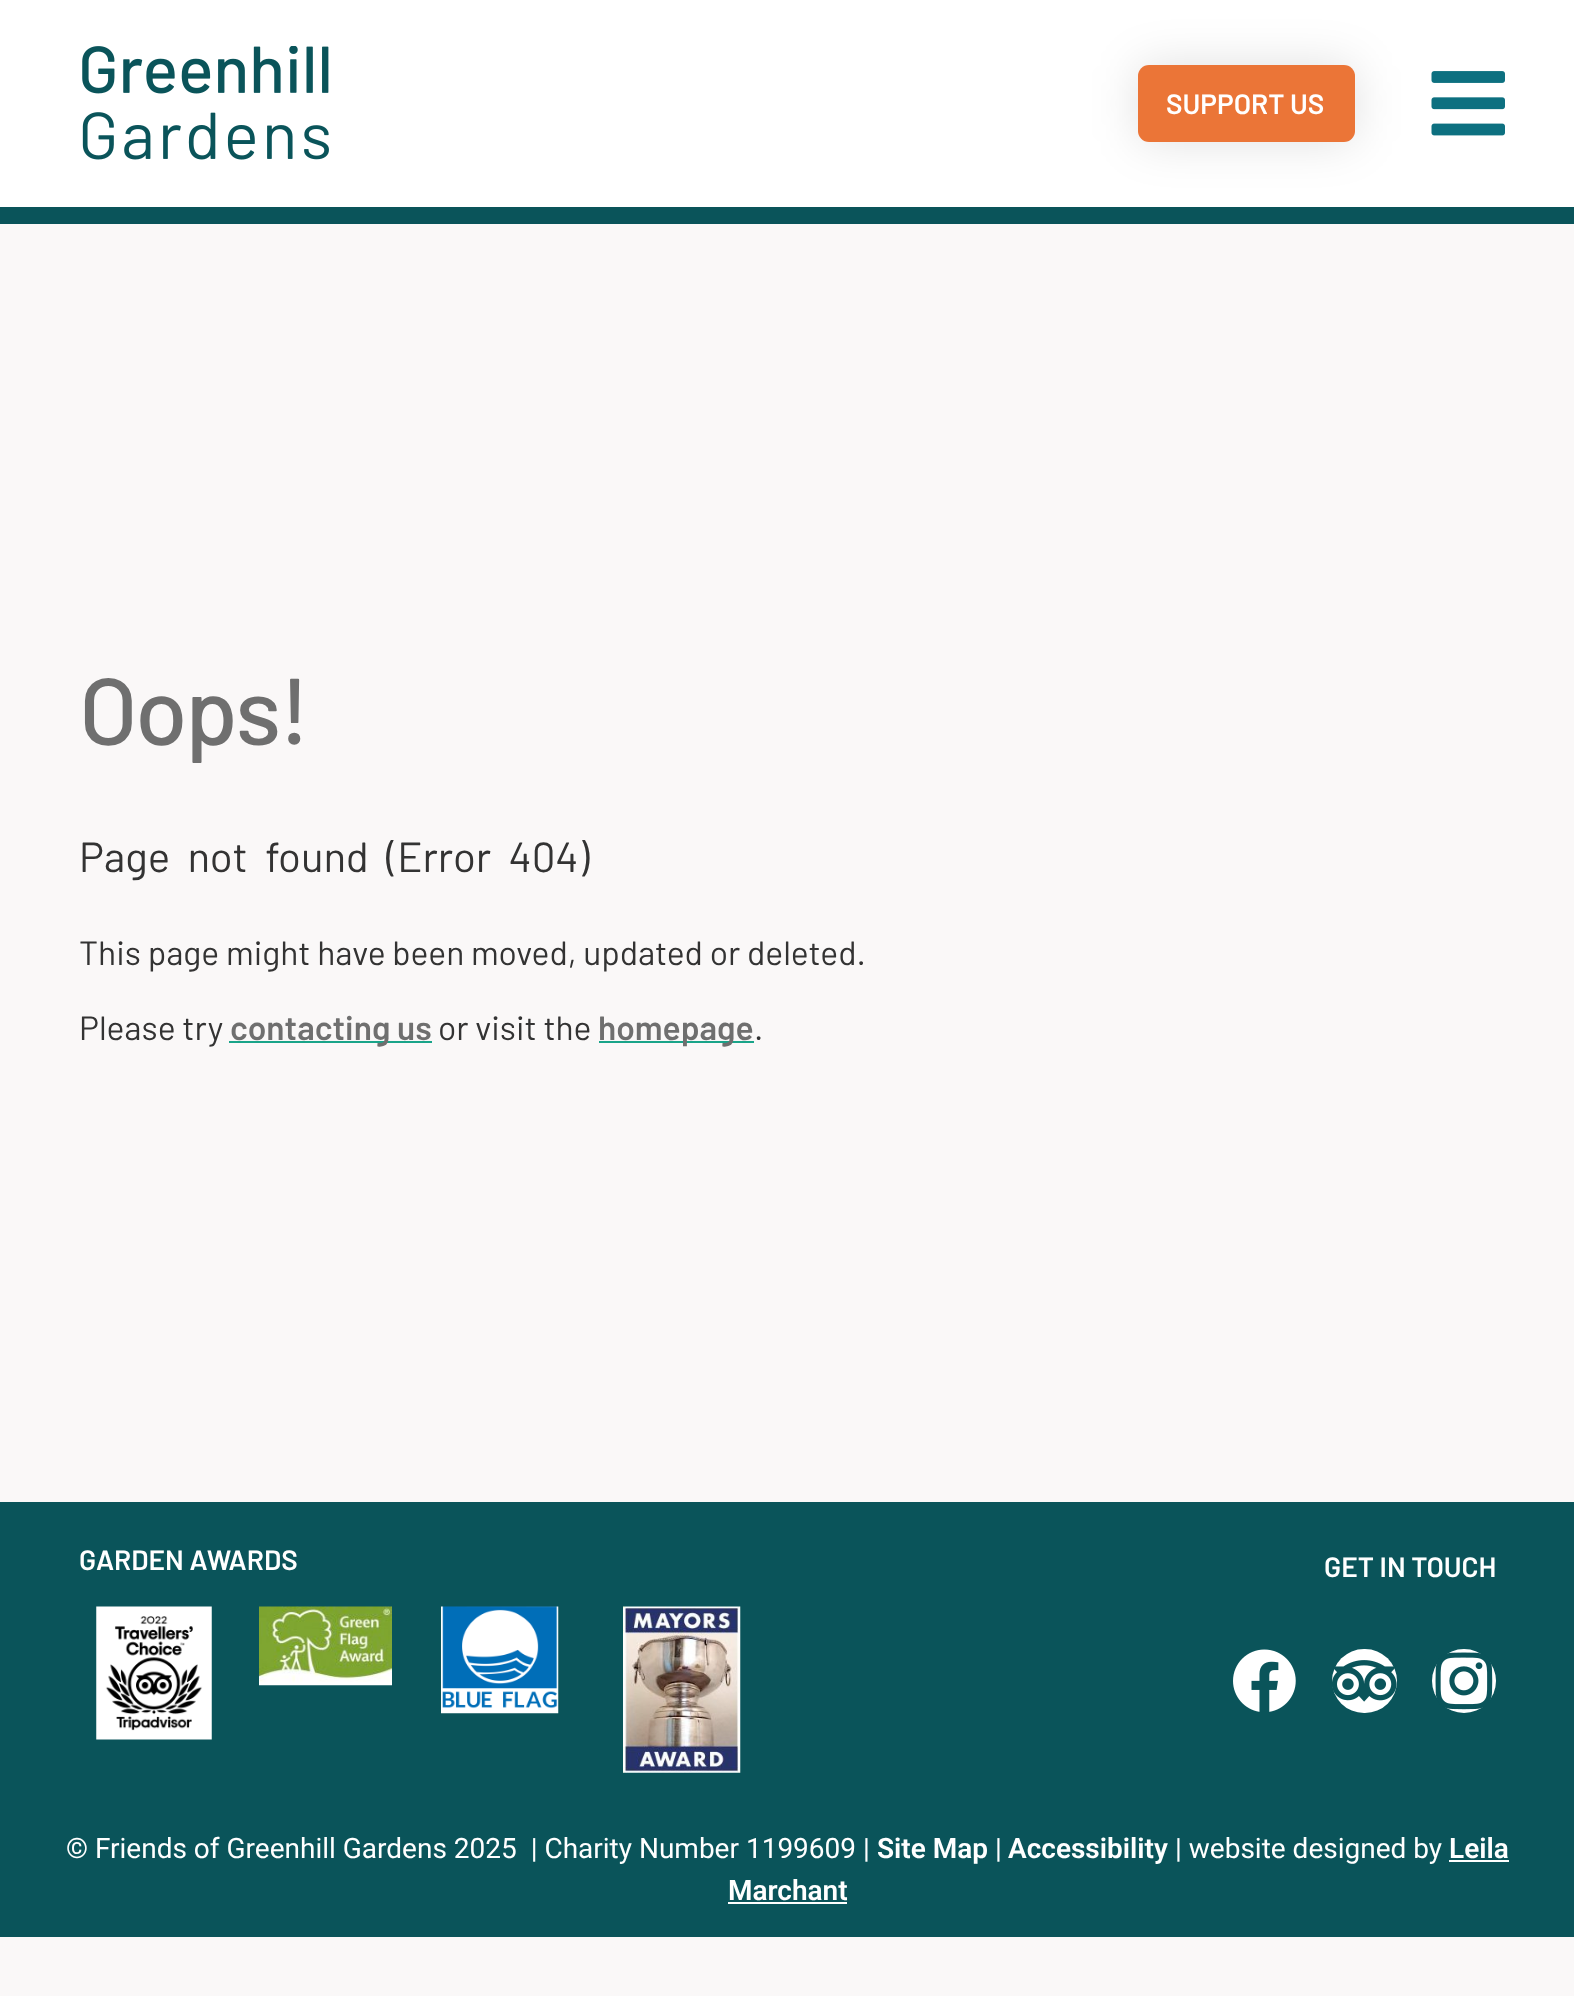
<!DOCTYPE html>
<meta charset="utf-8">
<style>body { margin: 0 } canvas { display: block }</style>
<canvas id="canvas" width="1574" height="1996"></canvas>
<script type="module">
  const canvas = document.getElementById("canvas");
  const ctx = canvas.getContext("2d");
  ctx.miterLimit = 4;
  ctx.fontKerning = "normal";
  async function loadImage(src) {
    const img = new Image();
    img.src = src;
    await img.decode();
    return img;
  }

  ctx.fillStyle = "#faf8f8";
  ctx.fillRect(0, 0, 1574, 1996);
  ctx.fillStyle = "#ffffff";
  ctx.fillRect(0, 0, 1574, 207);
  ctx.fillStyle = "#0a545a";
  ctx.fillRect(0, 207, 1574, 17);
  ctx.drawImage(await loadImage("img1.png"), 82, 46, 247, 114);
  ctx.fillStyle = "rgba(0, 0, 0, 0.12)";
  ctx.filter = "blur(23.5px)";
  ctx.beginPath();
  ctx.roundRect(1138, 65, 217, 77, 11);
  ctx.fill();
  ctx.filter = "none";
  ctx.fillStyle = "#eb7537";
  ctx.beginPath();
  ctx.roundRect(1138, 65, 217, 77, 11);
  ctx.fill();
  ctx.font = "600 28px Barlow";
  ctx.fillStyle = "#ffffff";
  ctx.fillText("SUPPORT US", 1166, 114);
  ctx.drawImage(await loadImage("img2.png"), 1431, 71, 74, 65);
  ctx.letterSpacing = "-2.5px";
  ctx.font = "500 94.5px Barlow";
  ctx.fillStyle = "#6f6f6f";
  ctx.fillText("Oops!", 79, 745);
  ctx.letterSpacing = "0px";
  ctx.wordSpacing = "9px";
  ctx.font = "42px Barlow";
  ctx.fillStyle = "#333333";
  ctx.fillText("Page not found (Error 404)", 79, 872);
  ctx.wordSpacing = "0px";
  ctx.font = "33.6px Barlow";
  ctx.fillText("This page might have been moved, updated or deleted.", 79, 965);
  ctx.fillText("Please try", 79, 1040);
  ctx.fillStyle = "#19a489";
  ctx.fillRect(229, 1041, 203, 2);
  ctx.font = "600 33.6px Barlow";
  ctx.fillStyle = "#6f6f6f";
  ctx.fillText("contacting us", 230, 1040);
  ctx.font = "33.6px Barlow";
  ctx.fillStyle = "#333333";
  ctx.fillText("or visit the", 438, 1040);
  ctx.fillStyle = "#19a489";
  ctx.fillRect(599, 1041, 155, 2);
  ctx.font = "600 33.6px Barlow";
  ctx.fillStyle = "#6f6f6f";
  ctx.fillText("homepage", 598, 1040);
  ctx.font = "33.6px Barlow";
  ctx.fillStyle = "#333333";
  ctx.fillText(".", 754, 1040);
  ctx.fillStyle = "#0a545a";
  ctx.fillRect(0, 1502, 1574, 435);
  ctx.font = "600 28px Barlow";
  ctx.fillStyle = "#ffffff";
  ctx.fillText("GARDEN AWARDS", 79, 1570);
  ctx.drawImage(await loadImage("img3.png"), 96, 1606, 116, 134);
  ctx.drawImage(await loadImage("img4.png"), 259, 1606, 133, 80);
  ctx.drawImage(await loadImage("img5.png"), 441, 1606, 118, 108);
  ctx.drawImage(await loadImage("img6.png"), 623, 1606, 118, 167);
  ctx.fillText("GET IN TOUCH", 1324, 1577);
  ctx.drawImage(await loadImage("img7.png"), 1233, 1649, 63, 63);
  ctx.beginPath();
  ctx.roundRect(1332, 1649, 65, 64, 32);
  ctx.fill();
  ctx.drawImage(await loadImage("img8.png"), 1332, 1660, 65, 42);
  ctx.beginPath();
  ctx.arc(1464, 1681, 32, 0, Math.PI * 2);
  ctx.fill();
  ctx.drawImage(await loadImage("img9.png"), 1435, 1652, 58, 58);
  ctx.font = "28px Roboto";
  ctx.fillText("© Friends of Greenhill Gardens 2025  | Charity Number 1199609 |", 66, 1858);
  ctx.font = "600 28px Roboto";
  ctx.fillText("Site Map", 877, 1858);
  ctx.font = "28px Roboto";
  ctx.fillText("|", 995, 1858);
  ctx.font = "600 28px Roboto";
  ctx.fillText("Accessibility", 1008, 1858);
  ctx.font = "28px Roboto";
  ctx.fillText("| website designed by", 1175, 1858);
  ctx.font = "600 28px Roboto";
  ctx.fillText("Leila", 1449, 1858);
  ctx.fillRect(1449, 1860, 60, 2);
  ctx.fillText("Marchant", 728, 1900);
  ctx.fillRect(728, 1902, 119, 2);
</script>
